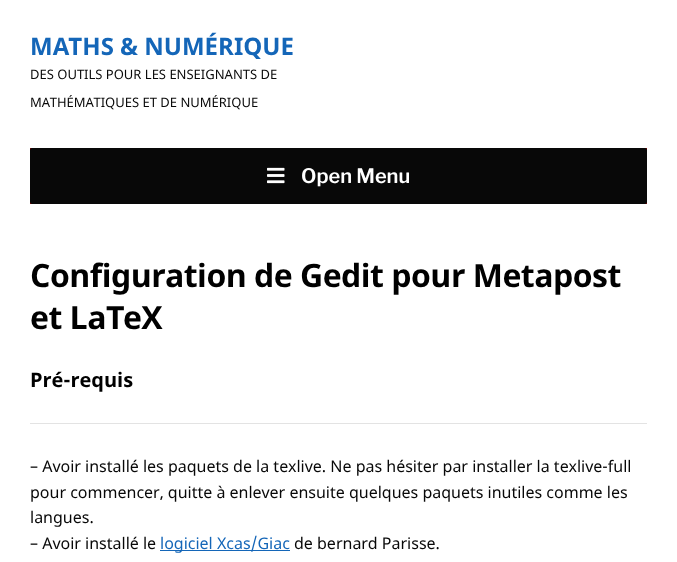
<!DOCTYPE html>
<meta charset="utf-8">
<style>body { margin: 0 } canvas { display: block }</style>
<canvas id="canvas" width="677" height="562"></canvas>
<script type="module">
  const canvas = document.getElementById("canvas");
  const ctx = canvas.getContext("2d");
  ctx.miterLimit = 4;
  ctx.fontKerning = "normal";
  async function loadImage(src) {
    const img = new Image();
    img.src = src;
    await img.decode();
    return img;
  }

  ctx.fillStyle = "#ffffff";
  ctx.fillRect(0, 0, 677, 562);
  ctx.font = "bold 24px Noto Sans";
  ctx.fillStyle = "#1466b8";
  ctx.fillText("MATHS & NUMÉRIQUE", 30, 55);
  ctx.font = "13px Noto Sans";
  ctx.fillStyle = "#080808";
  ctx.fillText("DES OUTILS POUR LES ENSEIGNANTS DE", 30, 79);
  ctx.fillText("MATHÉMATIQUES ET DE NUMÉRIQUE", 30, 107);
  ctx.fillStyle = "#910808";
  ctx.fillRect(30, 148, 617, 56);
  ctx.fillStyle = "#080808";
  ctx.beginPath();
  ctx.roundRect(30, 148, 617, 56, 2);
  ctx.fill();
  ctx.drawImage(await loadImage("img1.png"), 267, 167, 18, 17);
  ctx.font = "600 20px Libre Franklin";
  ctx.fillStyle = "#ffffff";
  ctx.fillText("Open Menu", 301, 183);
  ctx.letterSpacing = "-0.5px";
  ctx.font = "bold 32px Noto Sans";
  ctx.fillStyle = "#000000";
  ctx.fillText("Configuration de Gedit pour Metapost", 30, 287);
  ctx.fillText("et LaTeX", 30, 329);
  ctx.letterSpacing = "0px";
  ctx.font = "bold 20px Noto Sans";
  ctx.fillText("Pré-requis", 30, 387);
  ctx.fillStyle = "#e3e3e3";
  ctx.fillRect(30, 423, 617, 1);
  ctx.font = "16px Noto Sans";
  ctx.fillStyle = "#080808";
  ctx.fillText("– Avoir installé les paquets de la texlive. Ne pas hésiter par installer la texlive-full", 30, 472);
  ctx.fillText("pour commencer, quitte à enlever ensuite quelques paquets inutiles comme les", 30, 498);
  ctx.fillText("langues.", 30, 523);
  ctx.fillText("– Avoir installé le", 30, 549);
  ctx.fillStyle = "#1466b8";
  ctx.fillRect(160, 550, 130, 1);
  ctx.fillText("logiciel Xcas/Giac", 160, 549);
  ctx.fillStyle = "#080808";
  ctx.fillText("de bernard Parisse.", 294, 549);
</script>
